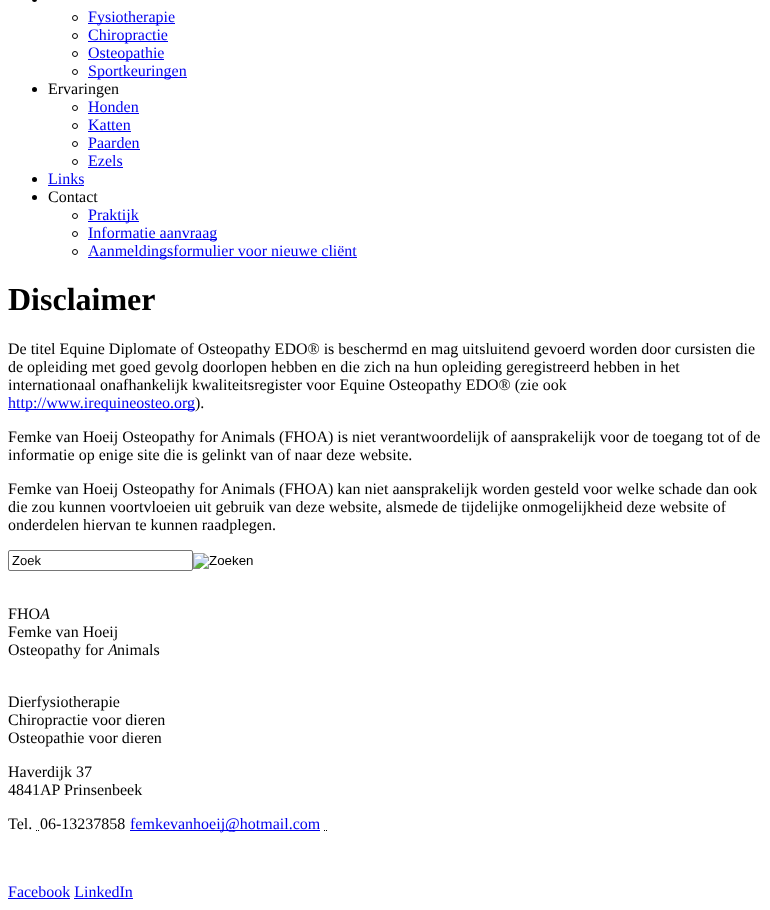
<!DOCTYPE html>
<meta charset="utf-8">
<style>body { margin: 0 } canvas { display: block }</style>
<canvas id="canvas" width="770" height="910"></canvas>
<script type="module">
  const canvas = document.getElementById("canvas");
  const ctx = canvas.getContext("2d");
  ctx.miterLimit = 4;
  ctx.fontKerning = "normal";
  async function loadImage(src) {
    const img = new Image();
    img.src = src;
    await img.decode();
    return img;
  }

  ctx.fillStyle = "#ffffff";
  ctx.fillRect(0, 0, 770, 910);
  ctx.fillStyle = "#000000";
  ctx.beginPath();
  ctx.arc(34.5, -0.5, 2.5, 0, Math.PI * 2);
  ctx.fill();
  ctx.beginPath();
  ctx.arc(75, 18, 2.5, 0, Math.PI * 2);
  ctx.strokeStyle = "#000000";
  ctx.stroke();
  ctx.fillStyle = "#0000ee";
  ctx.fillRect(88, 23, 87, 1);
  ctx.font = "16px Liberation Serif";
  ctx.fillText("Fysiotherapie", 88, 22);
  ctx.beginPath();
  ctx.arc(75, 36, 2.5, 0, Math.PI * 2);
  ctx.stroke();
  ctx.fillRect(88, 41, 80, 1);
  ctx.fillText("Chiropractie", 88, 40);
  ctx.beginPath();
  ctx.arc(75, 54, 2.5, 0, Math.PI * 2);
  ctx.stroke();
  ctx.fillRect(88, 59, 76, 1);
  ctx.fillText("Osteopathie", 88, 58);
  ctx.beginPath();
  ctx.arc(75, 72, 2.5, 0, Math.PI * 2);
  ctx.stroke();
  ctx.fillRect(88, 77, 99, 1);
  ctx.fillText("Sportkeuringen", 88, 76);
  ctx.fillStyle = "#000000";
  ctx.beginPath();
  ctx.arc(34.5, 89.5, 2.5, 0, Math.PI * 2);
  ctx.fill();
  ctx.fillText("Ervaringen", 48, 94);
  ctx.beginPath();
  ctx.arc(75, 108, 2.5, 0, Math.PI * 2);
  ctx.stroke();
  ctx.fillStyle = "#0000ee";
  ctx.fillText("Honden", 88, 112);
  ctx.fillRect(88, 113, 51, 1);
  ctx.beginPath();
  ctx.arc(75, 126, 2.5, 0, Math.PI * 2);
  ctx.stroke();
  ctx.fillText("Katten", 88, 130);
  ctx.fillRect(88, 131, 43, 1);
  ctx.beginPath();
  ctx.arc(75, 144, 2.5, 0, Math.PI * 2);
  ctx.stroke();
  ctx.fillText("Paarden", 88, 148);
  ctx.fillRect(88, 149, 52, 1);
  ctx.beginPath();
  ctx.arc(75, 162, 2.5, 0, Math.PI * 2);
  ctx.stroke();
  ctx.fillText("Ezels", 88, 166);
  ctx.fillRect(88, 167, 35, 1);
  ctx.fillStyle = "#000000";
  ctx.beginPath();
  ctx.arc(34.5, 179.5, 2.5, 0, Math.PI * 2);
  ctx.fill();
  ctx.fillStyle = "#0000ee";
  ctx.fillText("Links", 48, 184);
  ctx.fillRect(48, 185, 36, 1);
  ctx.fillStyle = "#000000";
  ctx.beginPath();
  ctx.arc(34.5, 197.5, 2.5, 0, Math.PI * 2);
  ctx.fill();
  ctx.fillText("Contact", 48, 202);
  ctx.beginPath();
  ctx.arc(75, 216, 2.5, 0, Math.PI * 2);
  ctx.stroke();
  ctx.fillStyle = "#0000ee";
  ctx.fillRect(88, 221, 51, 1);
  ctx.fillText("Praktijk", 88, 220);
  ctx.beginPath();
  ctx.arc(75, 234, 2.5, 0, Math.PI * 2);
  ctx.stroke();
  ctx.fillRect(88, 239, 129, 1);
  ctx.fillText("Informatie aanvraag", 88, 238);
  ctx.beginPath();
  ctx.arc(75, 252, 2.5, 0, Math.PI * 2);
  ctx.stroke();
  ctx.fillRect(88, 257, 269, 1);
  ctx.fillText("Aanmeldingsformulier voor nieuwe cliёnt", 88, 256);
  ctx.font = "bold 32px Liberation Serif";
  ctx.fillStyle = "#000000";
  ctx.fillText("Disclaimer", 8, 310);
  ctx.font = "16px Liberation Serif";
  ctx.fillText("De titel Equine Diplomate of Osteopathy EDO® is beschermd en mag uitsluitend gevoerd worden door cursisten die", 8, 354);
  ctx.fillText("de opleiding met goed gevolg doorlopen hebben en die zich na hun opleiding geregistreerd hebben in het", 8, 372);
  ctx.fillText("internationaal onafhankelijk kwaliteitsregister voor Equine Osteopathy EDO® (zie ook", 8, 390);
  ctx.fillStyle = "#0000ee";
  ctx.fillRect(8, 409, 187, 1);
  ctx.fillText("http://www.irequineosteo.org", 8, 408);
  ctx.fillStyle = "#000000";
  ctx.fillText(").", 195, 408);
  ctx.fillText("Femke van Hoeij Osteopathy for Animals (FHOA) is niet verantwoordelijk of aansprakelijk voor de toegang tot of de", 8, 442);
  ctx.fillText("informatie op enige site die is gelinkt van of naar deze website.", 8, 460);
  ctx.fillText("Femke van Hoeij Osteopathy for Animals (FHOA) kan niet aansprakelijk worden gesteld voor welke schade dan ook", 8, 494);
  ctx.fillText("die zou kunnen voortvloeien uit gebruik van deze website, alsmede de tijdelijke onmogelijkheid deze website of", 8, 512);
  ctx.fillText("onderdelen hiervan te kunnen raadplegen.", 8, 530);
  ctx.beginPath();
  ctx.roundRect(8.5, 550.5, 184, 20, 1.5);
  ctx.strokeStyle = "#767676";
  ctx.stroke();
  ctx.font = "13px Liberation Sans";
  ctx.fillText("Zoek", 12, 565);
  ctx.drawImage(await loadImage("img1.png"), 193, 553, 60, 16);
  ctx.font = "16px Liberation Serif";
  ctx.fillText("FHO", 8, 619);
  ctx.font = "italic 16px Liberation Serif";
  ctx.fillText("A", 40, 619);
  ctx.font = "16px Liberation Serif";
  ctx.fillText("Femke van Hoeij", 8, 637);
  ctx.fillText("Osteopathy for", 8, 655);
  ctx.font = "italic 16px Liberation Serif";
  ctx.fillText("A", 108, 655);
  ctx.font = "16px Liberation Serif";
  ctx.fillText("nimals", 117, 655);
  ctx.fillText("Dierfysiotherapie", 8, 707);
  ctx.fillText("Chiropractie voor dieren", 8, 725);
  ctx.fillText("Osteopathie voor dieren", 8, 743);
  ctx.fillText("Haverdijk 37", 8, 777);
  ctx.fillText("4841AP", 8, 795);
  ctx.fillText("Prinsenbeek", 64, 795);
  ctx.fillText("Tel.", 8, 829);
  ctx.fillText("06-13237858", 40, 829);
  ctx.beginPath();
  ctx.moveTo(36, 830.5);
  ctx.lineTo(37, 830.5);
  ctx.moveTo(38, 830.5);
  ctx.lineTo(39, 830.5);
  ctx.strokeStyle = "#000000";
  ctx.stroke();
  ctx.fillStyle = "#0000ee";
  ctx.fillRect(130, 830, 190, 1);
  ctx.fillText("femkevanhoeij@hotmail.com", 130, 829);
  ctx.beginPath();
  ctx.moveTo(324, 830.5);
  ctx.lineTo(325, 830.5);
  ctx.moveTo(326, 830.5);
  ctx.lineTo(327, 830.5);
  ctx.stroke();
  ctx.fillText("Facebook LinkedIn", 8, 897);
  ctx.fillRect(8, 898, 62, 1);
  ctx.fillRect(74, 898, 59, 1);
</script>
